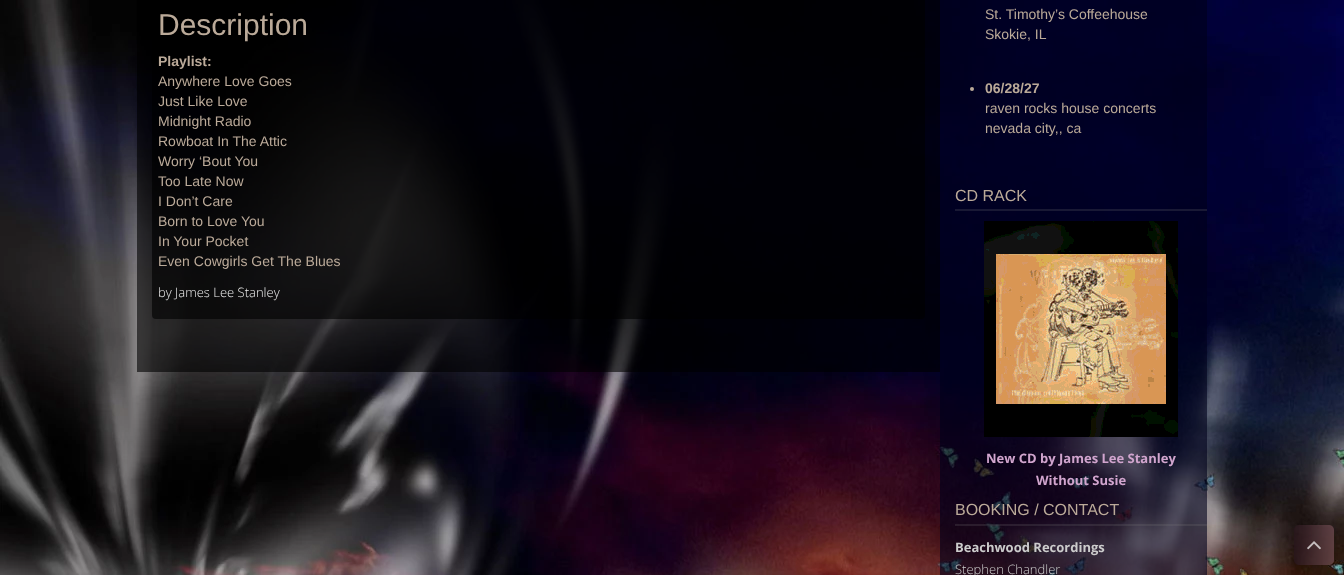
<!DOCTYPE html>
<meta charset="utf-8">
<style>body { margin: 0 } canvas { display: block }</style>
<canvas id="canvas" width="1344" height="575"></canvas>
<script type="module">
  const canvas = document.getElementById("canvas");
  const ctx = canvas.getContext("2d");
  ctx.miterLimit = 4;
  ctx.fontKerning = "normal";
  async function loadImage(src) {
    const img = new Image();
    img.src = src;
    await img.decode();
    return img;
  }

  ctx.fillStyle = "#ffffff";
  ctx.fillRect(0, 0, 1344, 575);
  ctx.drawImage(await loadImage("img1.png"), 0, 0, 1344, 575);
  ctx.fillStyle = "rgba(0, 0, 0, 0.6)";
  ctx.fillRect(137, 0, 803, 372);
  ctx.beginPath();
  ctx.roundRect(152, -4, 773, 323, 4);
  ctx.fill();
  ctx.font = "30px Liberation Sans";
  ctx.fillStyle = "#bbaa99";
  ctx.fillText("Description", 158, 35);
  ctx.font = "bold 14px Liberation Sans";
  ctx.fillText("Playlist:", 158, 66);
  ctx.font = "14px Liberation Sans";
  ctx.fillText("Anywhere Love Goes", 158, 86);
  ctx.fillText("Just Like Love", 158, 106);
  ctx.fillText("Midnight Radio", 158, 126);
  ctx.fillText("Rowboat In The Attic", 158, 146);
  ctx.fillText("Worry ‘Bout You", 158, 166);
  ctx.fillText("Too Late Now", 158, 186);
  ctx.fillText("I Don’t Care", 158, 206);
  ctx.fillText("Born to Love You", 158, 226);
  ctx.fillText("In Your Pocket", 158, 246);
  ctx.fillText("Even Cowgirls Get The Blues", 158, 266);
  ctx.font = "300 13px Open Sans";
  ctx.fillStyle = "#eeeeee";
  ctx.fillText("by James Lee Stanley", 158, 297);
  ctx.fillStyle = "rgba(0, 0, 26, 0.6)";
  ctx.fillRect(940, 0, 267, 575);
  ctx.font = "14px Liberation Sans";
  ctx.fillStyle = "#bbaa99";
  ctx.fillText("St. Timothy’s Coffeehouse", 985, 19);
  ctx.fillText("Skokie, IL", 985, 39);
  ctx.beginPath();
  ctx.arc(972, 89, 2, 0, Math.PI * 2);
  ctx.fill();
  ctx.font = "bold 14px Liberation Sans";
  ctx.fillText("06/28/27", 985, 93);
  ctx.font = "14px Liberation Sans";
  ctx.fillText("raven rocks house concerts", 985, 113);
  ctx.fillText("nevada city,, ca", 985, 133);
  ctx.fillStyle = "rgba(127, 127, 127, 0.2)";
  ctx.fillRect(955, 209, 252, 2);
  ctx.font = "16px Liberation Sans";
  ctx.fillStyle = "#bbaa99";
  ctx.fillText("CD RACK", 955, 201);
  ctx.drawImage(await loadImage("img2.png"), 984, 221, 194, 216);
  ctx.font = "bold 13px Open Sans";
  ctx.fillStyle = "#d1a5ce";
  ctx.fillText("New CD by James Lee Stanley", 986, 463);
  ctx.fillText("Without Susie", 1036, 485);
  ctx.fillStyle = "rgba(127, 127, 127, 0.2)";
  ctx.fillRect(955, 524, 252, 2);
  ctx.font = "16px Liberation Sans";
  ctx.fillStyle = "#bbaa99";
  ctx.fillText("BOOKING / CONTACT", 955, 515);
  ctx.font = "bold 13px Open Sans";
  ctx.fillStyle = "#cccccc";
  ctx.fillText("Beachwood Recordings", 955, 552);
  ctx.font = "300 13px Open Sans";
  ctx.fillText("Stephen Chandler", 955, 574);
  ctx.drawImage(await loadImage("img3.png"), 1307, 541, 14, 9);
</script>
